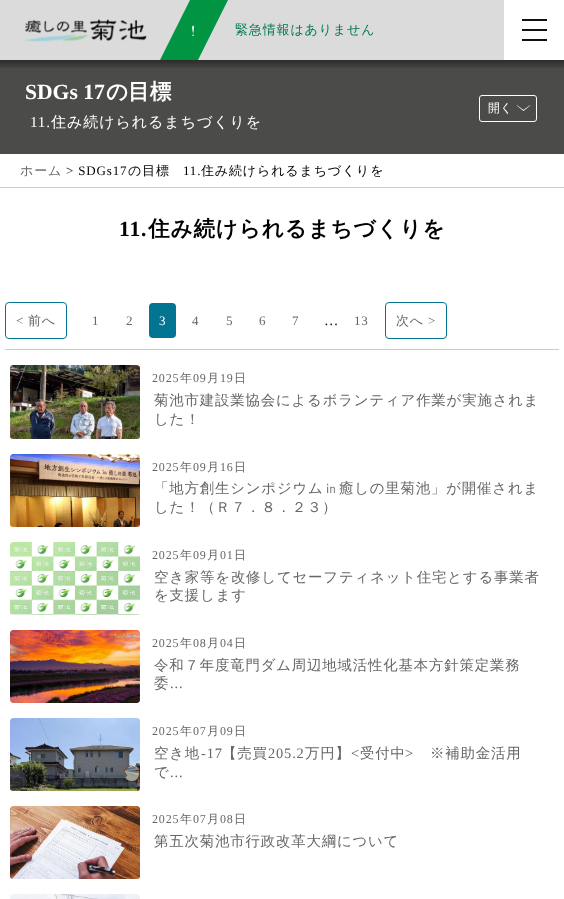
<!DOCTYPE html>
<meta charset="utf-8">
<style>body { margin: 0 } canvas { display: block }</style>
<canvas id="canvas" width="564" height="899"></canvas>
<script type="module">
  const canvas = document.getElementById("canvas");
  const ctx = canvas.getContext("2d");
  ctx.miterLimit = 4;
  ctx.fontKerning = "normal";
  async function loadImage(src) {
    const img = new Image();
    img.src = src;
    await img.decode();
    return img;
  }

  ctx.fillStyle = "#4b4b49";
  ctx.fillRect(0, 0, 564, 899);
  ctx.drawImage(await loadImage("img1.png"), 0, 60, 564, 8);
  ctx.fillStyle = "#dbdbdb";
  ctx.fillRect(0, 0, 504, 60);
  ctx.drawImage(await loadImage("img2.png"), 24, 19, 123, 23);
  ctx.fillStyle = "#019443";
  ctx.beginPath();
  ctx.moveTo(198, 60);
  ctx.lineTo(160, 60);
  ctx.lineTo(190, 0);
  ctx.lineTo(228, 0);
  ctx.closePath();
  ctx.fill();
  ctx.fillStyle = "#ffffff";
  ctx.beginPath();
  ctx.moveTo(193, 34);
  ctx.bezierCurveTo(193.5, 33, 194.5, 26, 193.5, 25.5);
  ctx.lineTo(192.5, 26);
  ctx.bezierCurveTo(191.5, 27, 193, 32.5, 193, 34);
  ctx.closePath();
  ctx.fill();
  ctx.beginPath();
  ctx.arc(193.1, 35.2, 0.8, 0, Math.PI * 2);
  ctx.fill();
  ctx.letterSpacing = "0.85px";
  ctx.font = "500 13px WenQuanYi Zen Hei";
  ctx.fillStyle = "#007b52";
  ctx.fillText("緊急情報はありません", 235, 34);
  ctx.fillStyle = "#ffffff";
  ctx.fillRect(504, 0, 60, 60);
  ctx.fillStyle = "#111111";
  ctx.fillRect(522, 29, 25, 2);
  ctx.fillRect(522, 19, 25, 2);
  ctx.fillRect(522, 39, 25, 2);
  ctx.letterSpacing = "0px";
  ctx.font = "bold 21.6px Liberation Serif";
  ctx.fillStyle = "#ffffff";
  ctx.fillText("SDGs 17", 25, 99);
  ctx.font = "bold 21.6px WenQuanYi Zen Hei";
  ctx.fillText("の目標", 106, 99);
  ctx.drawImage(await loadImage("img3.png"), 516, 105, 15, 6);
  ctx.beginPath();
  ctx.roundRect(479.5, 95.5, 57, 26, 2.5);
  ctx.strokeStyle = "#ffffff";
  ctx.stroke();
  ctx.font = "500 12px WenQuanYi Zen Hei";
  ctx.fillText("開く", 488, 112);
  ctx.letterSpacing = "0.85px";
  ctx.font = "15.1px Liberation Serif";
  ctx.fillText("11.", 30, 127);
  ctx.font = "500 15.1px WenQuanYi Zen Hei";
  ctx.fillText("住み続けられるまちづくりを", 51, 127);
  ctx.fillRect(0, 154, 564, 745);
  ctx.fillStyle = "#cccccc";
  ctx.fillRect(0, 187, 564, 1);
  ctx.font = "500 13px WenQuanYi Zen Hei";
  ctx.fillStyle = "#666666";
  ctx.fillText("ホーム", 20, 175);
  ctx.font = "13px Liberation Serif";
  ctx.fillStyle = "#000000";
  ctx.fillText("> SDGs17", 66, 175);
  ctx.font = "500 13px WenQuanYi Zen Hei";
  ctx.fillText("の目標", 128, 175);
  ctx.font = "13px Liberation Serif";
  ctx.fillText("11.", 183, 175);
  ctx.font = "500 13px WenQuanYi Zen Hei";
  ctx.fillText("住み続けられるまちづくりを", 201, 175);
  ctx.font = "bold 21.6px Liberation Serif";
  ctx.fillText("11.", 119, 236);
  ctx.font = "bold 21.6px WenQuanYi Zen Hei";
  ctx.fillText("住み続けられるまちづくりを", 148, 236);
  ctx.fillStyle = "#cdcdcd";
  ctx.fillRect(5, 349, 554, 1);
  ctx.beginPath();
  ctx.roundRect(5.5, 302.5, 61, 36, 3.5);
  ctx.strokeStyle = "#037491";
  ctx.stroke();
  ctx.font = "13px Liberation Serif";
  ctx.fillStyle = "#666666";
  ctx.fillText("<", 16, 325);
  ctx.font = "500 13px WenQuanYi Zen Hei";
  ctx.fillText("前へ", 28, 325);
  ctx.font = "13px Liberation Serif";
  ctx.fillText("1", 92, 325);
  ctx.fillText("2", 126, 325);
  ctx.fillStyle = "#037491";
  ctx.beginPath();
  ctx.roundRect(149, 303, 27, 35, 4);
  ctx.fill();
  ctx.fillStyle = "#ffffff";
  ctx.fillText("3", 159, 325);
  ctx.fillStyle = "#666666";
  ctx.fillText("4", 192, 325);
  ctx.fillText("5", 226, 325);
  ctx.fillText("6", 259, 325);
  ctx.fillText("7", 292, 325);
  ctx.font = "14.4px Liberation Serif";
  ctx.fillStyle = "#000000";
  ctx.fillText("…", 324, 325);
  ctx.font = "13px Liberation Serif";
  ctx.fillStyle = "#666666";
  ctx.fillText("13", 354, 325);
  ctx.beginPath();
  ctx.roundRect(385.5, 302.5, 61, 36, 3.5);
  ctx.stroke();
  ctx.font = "500 13px WenQuanYi Zen Hei";
  ctx.fillText("次へ", 396, 325);
  ctx.font = "13px Liberation Serif";
  ctx.fillText(">", 428, 325);
  ctx.drawImage(await loadImage("img4.png"), 10, 365, 130, 74);
  ctx.font = "12px Liberation Serif";
  ctx.fillText("2025", 152, 382);
  ctx.font = "500 12px WenQuanYi Zen Hei";
  ctx.fillText("年", 180, 382);
  ctx.font = "12px Liberation Serif";
  ctx.fillText("09", 193, 382);
  ctx.font = "500 12px WenQuanYi Zen Hei";
  ctx.fillText("月", 207, 382);
  ctx.font = "12px Liberation Serif";
  ctx.fillText("19", 220, 382);
  ctx.font = "500 12px WenQuanYi Zen Hei";
  ctx.fillText("日", 234, 382);
  ctx.font = "500 14.4px WenQuanYi Zen Hei";
  ctx.fillText("菊池市建設業協会によるボランティア作業が実施されま", 154, 405);
  ctx.fillText("した！", 154, 424);
  ctx.drawImage(await loadImage("img5.png"), 10, 454, 130, 73);
  ctx.font = "12px Liberation Serif";
  ctx.fillText("2025", 152, 471);
  ctx.font = "500 12px WenQuanYi Zen Hei";
  ctx.fillText("年", 180, 471);
  ctx.font = "12px Liberation Serif";
  ctx.fillText("09", 193, 471);
  ctx.font = "500 12px WenQuanYi Zen Hei";
  ctx.fillText("月", 207, 471);
  ctx.font = "12px Liberation Serif";
  ctx.fillText("16", 220, 471);
  ctx.font = "500 12px WenQuanYi Zen Hei";
  ctx.fillText("日", 234, 471);
  ctx.font = "500 14.4px WenQuanYi Zen Hei";
  ctx.fillText("「地方創生シンポジウム㏌癒しの里菊池」が開催されま", 154, 493);
  ctx.fillText("した！（Ｒ７．８．２３）", 154, 512);
  ctx.drawImage(await loadImage("img6.png"), 10, 542, 130, 73);
  ctx.font = "12px Liberation Serif";
  ctx.fillText("2025", 152, 559);
  ctx.font = "500 12px WenQuanYi Zen Hei";
  ctx.fillText("年", 180, 559);
  ctx.font = "12px Liberation Serif";
  ctx.fillText("09", 193, 559);
  ctx.font = "500 12px WenQuanYi Zen Hei";
  ctx.fillText("月", 207, 559);
  ctx.font = "12px Liberation Serif";
  ctx.fillText("01", 220, 559);
  ctx.font = "500 12px WenQuanYi Zen Hei";
  ctx.fillText("日", 234, 559);
  ctx.font = "500 14.4px WenQuanYi Zen Hei";
  ctx.fillText("空き家等を改修してセーフティネット住宅とする事業者", 154, 582);
  ctx.fillText("を支援します", 154, 600);
  ctx.drawImage(await loadImage("img7.png"), 10, 630, 130, 73);
  ctx.font = "12px Liberation Serif";
  ctx.fillText("2025", 152, 647);
  ctx.font = "500 12px WenQuanYi Zen Hei";
  ctx.fillText("年", 180, 647);
  ctx.font = "12px Liberation Serif";
  ctx.fillText("08", 193, 647);
  ctx.font = "500 12px WenQuanYi Zen Hei";
  ctx.fillText("月", 207, 647);
  ctx.font = "12px Liberation Serif";
  ctx.fillText("04", 220, 647);
  ctx.font = "500 12px WenQuanYi Zen Hei";
  ctx.fillText("日", 234, 647);
  ctx.font = "500 14.4px WenQuanYi Zen Hei";
  ctx.fillText("令和７年度竜門ダム周辺地域活性化基本方針策定業務", 154, 670);
  ctx.fillText("委", 154, 688);
  ctx.font = "14.4px Liberation Serif";
  ctx.fillText("...", 170, 688);
  ctx.drawImage(await loadImage("img8.png"), 10, 718, 130, 73);
  ctx.font = "12px Liberation Serif";
  ctx.fillText("2025", 152, 735);
  ctx.font = "500 12px WenQuanYi Zen Hei";
  ctx.fillText("年", 180, 735);
  ctx.font = "12px Liberation Serif";
  ctx.fillText("07", 193, 735);
  ctx.font = "500 12px WenQuanYi Zen Hei";
  ctx.fillText("月", 207, 735);
  ctx.font = "12px Liberation Serif";
  ctx.fillText("09", 220, 735);
  ctx.font = "500 12px WenQuanYi Zen Hei";
  ctx.fillText("日", 234, 735);
  ctx.font = "500 14.4px WenQuanYi Zen Hei";
  ctx.fillText("空き地", 154, 758);
  ctx.font = "14.4px Liberation Serif";
  ctx.fillText("-17", 201, 758);
  ctx.font = "500 14.4px WenQuanYi Zen Hei";
  ctx.fillText("【売買", 222, 758);
  ctx.font = "14.4px Liberation Serif";
  ctx.fillText("205.2", 268, 758);
  ctx.font = "500 14.4px WenQuanYi Zen Hei";
  ctx.fillText("万円】", 305, 758);
  ctx.font = "14.4px Liberation Serif";
  ctx.fillText("<", 351, 758);
  ctx.font = "500 14.4px WenQuanYi Zen Hei";
  ctx.fillText("受付中", 360, 758);
  ctx.font = "14.4px Liberation Serif";
  ctx.fillText(">", 405, 758);
  ctx.font = "500 14.4px WenQuanYi Zen Hei";
  ctx.fillText("※補助金活用", 430, 758);
  ctx.fillText("で", 154, 777);
  ctx.font = "14.4px Liberation Serif";
  ctx.fillText("...", 170, 777);
  ctx.drawImage(await loadImage("img9.png"), 10, 806, 130, 73);
  ctx.font = "12px Liberation Serif";
  ctx.fillText("2025", 152, 823);
  ctx.font = "500 12px WenQuanYi Zen Hei";
  ctx.fillText("年", 180, 823);
  ctx.font = "12px Liberation Serif";
  ctx.fillText("07", 193, 823);
  ctx.font = "500 12px WenQuanYi Zen Hei";
  ctx.fillText("月", 207, 823);
  ctx.font = "12px Liberation Serif";
  ctx.fillText("08", 220, 823);
  ctx.font = "500 12px WenQuanYi Zen Hei";
  ctx.fillText("日", 234, 823);
  ctx.font = "500 14.4px WenQuanYi Zen Hei";
  ctx.fillText("第五次菊池市行政改革大綱について", 154, 846);
  ctx.drawImage(await loadImage("img10.png"), 10, 894, 130, 5);
</script>
